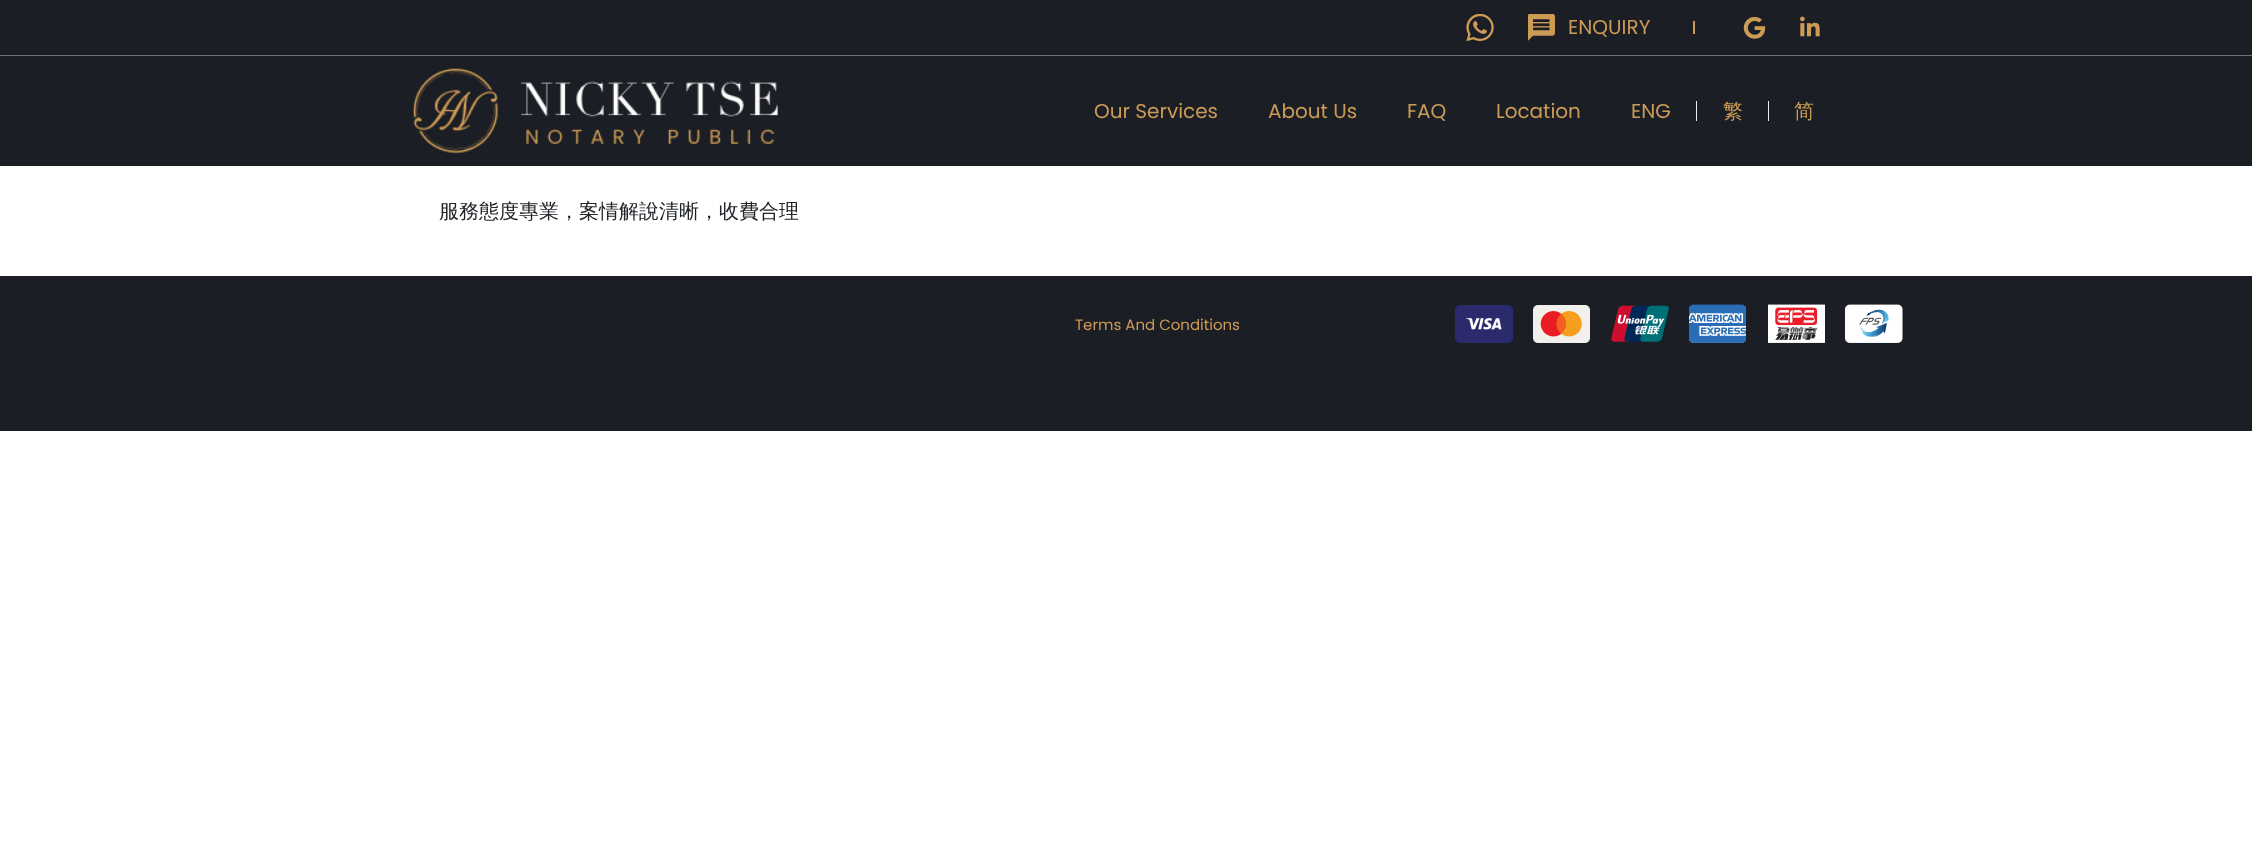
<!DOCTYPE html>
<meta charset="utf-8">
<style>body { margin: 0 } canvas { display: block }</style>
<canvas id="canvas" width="2252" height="867"></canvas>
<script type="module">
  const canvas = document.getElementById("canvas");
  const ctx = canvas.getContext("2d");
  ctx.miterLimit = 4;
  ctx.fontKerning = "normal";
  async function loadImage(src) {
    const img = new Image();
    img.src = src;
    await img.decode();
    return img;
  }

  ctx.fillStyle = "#ffffff";
  ctx.fillRect(0, 0, 2252, 867);
  ctx.fillStyle = "#1c1e25";
  ctx.fillRect(0, 0, 2252, 166);
  ctx.fillStyle = "#707070";
  ctx.fillRect(0, 55, 2252, 1);
  ctx.drawImage(await loadImage("img1.png"), 1466, 14, 28, 27);
  ctx.drawImage(await loadImage("img2.png"), 1528, 14, 27, 27);
  ctx.font = "20px Poppins";
  ctx.fillStyle = "#cc9b55";
  ctx.fillText("ENQUIRY", 1568, 34);
  ctx.fillRect(1693, 21, 2, 13);
  ctx.drawImage(await loadImage("img3.png"), 1743, 16, 23, 23);
  ctx.drawImage(await loadImage("img4.png"), 1800, 16, 20, 21);
  ctx.drawImage(await loadImage("img5.png"), 413, 68, 366, 86);
  ctx.fillText("Our Services", 1094, 118);
  ctx.fillText("About Us", 1268, 118);
  ctx.fillText("FAQ", 1407, 118);
  ctx.fillText("Location", 1496, 118);
  ctx.fillText("ENG", 1631, 118);
  ctx.fillStyle = "#f0f0f0";
  ctx.fillRect(1696, 101, 1, 20);
  ctx.font = "500 20px WenQuanYi Zen Hei";
  ctx.fillStyle = "#cc9b55";
  ctx.fillText("繁", 1723, 118);
  ctx.fillStyle = "#f0f0f0";
  ctx.fillRect(1768, 101, 1, 20);
  ctx.fillStyle = "#cc9b55";
  ctx.fillText("简", 1794, 118);
  ctx.fillStyle = "#212529";
  ctx.fillText("服務態度專業，案情解說清晰，收費合理", 439, 218);
  ctx.fillStyle = "#1c1e25";
  ctx.fillRect(0, 276, 2252, 155);
  ctx.font = "15px Poppins";
  ctx.fillStyle = "#cc9b55";
  ctx.fillText("Terms And Conditions", 1075, 330);
  ctx.drawImage(await loadImage("img6.png"), 1455, 305, 58, 38);
  ctx.drawImage(await loadImage("img7.png"), 1533, 305, 57, 38);
  ctx.drawImage(await loadImage("img8.png"), 1611, 305, 58, 37);
  ctx.drawImage(await loadImage("img9.png"), 1689, 304, 57, 39);
  ctx.drawImage(await loadImage("img10.png"), 1768, 304, 57, 39);
  ctx.drawImage(await loadImage("img11.png"), 1845, 304, 58, 39);
</script>
